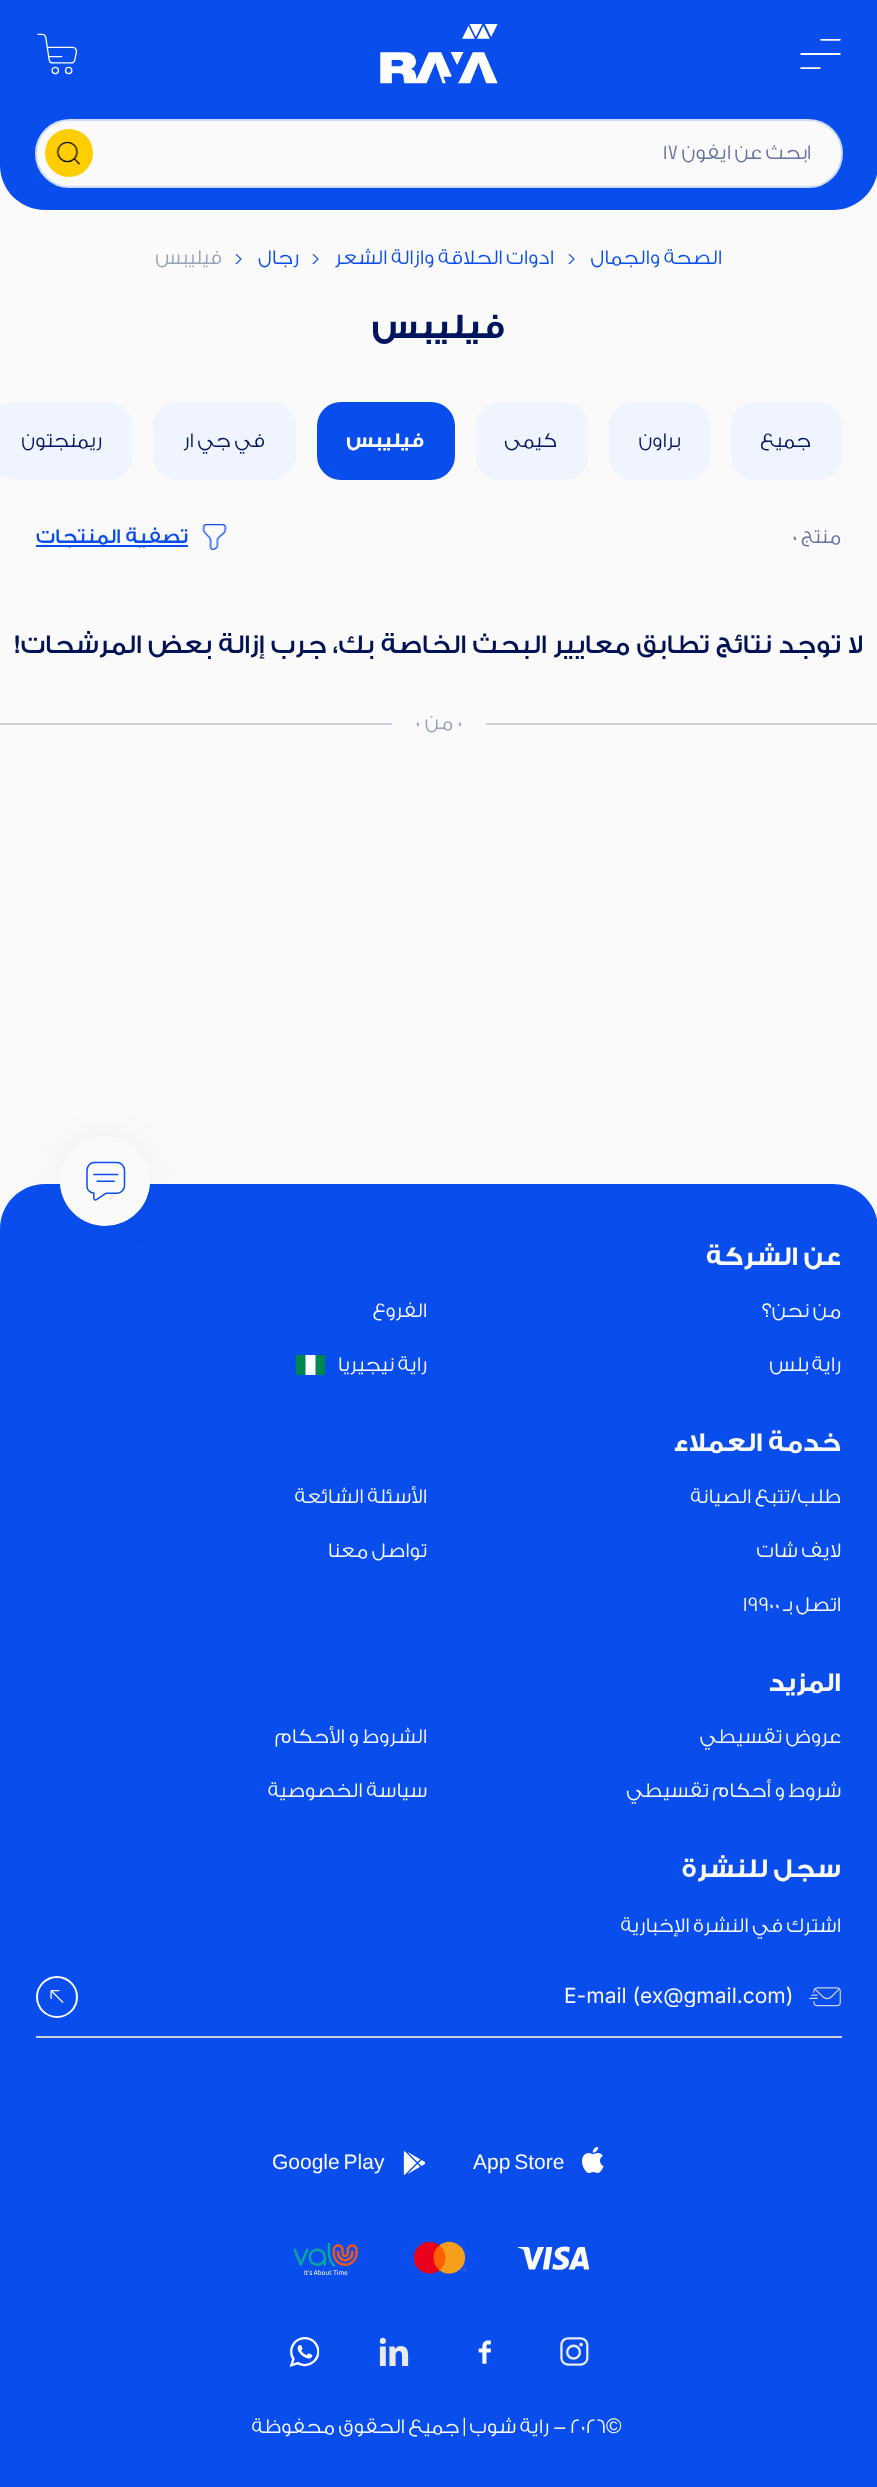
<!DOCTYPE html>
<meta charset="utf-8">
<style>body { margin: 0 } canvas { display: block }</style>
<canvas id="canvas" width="877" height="2487"></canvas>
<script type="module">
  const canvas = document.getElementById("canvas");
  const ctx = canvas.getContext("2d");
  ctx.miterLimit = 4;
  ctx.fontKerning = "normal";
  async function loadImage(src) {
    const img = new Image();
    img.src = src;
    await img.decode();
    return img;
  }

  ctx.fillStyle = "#fafafa";
  ctx.fillRect(0, 0, 877, 2487);
  ctx.fillStyle = "#094eed";
  ctx.beginPath();
  ctx.moveTo(0, 0);
  ctx.lineTo(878, 0);
  ctx.lineTo(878, 165);
  ctx.bezierCurveTo(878, 190, 858, 210, 833, 210);
  ctx.lineTo(45, 210);
  ctx.bezierCurveTo(20, 210, 0, 190, 0, 165);
  ctx.closePath();
  ctx.fill();
  ctx.drawImage(await loadImage("img1.png"), 800, 39, 41, 30);
  ctx.drawImage(await loadImage("img2.png"), 380, 24, 118, 60);
  ctx.drawImage(await loadImage("img3.png"), 37, 33, 41, 42);
  ctx.fillStyle = "#fafafa";
  ctx.beginPath();
  ctx.roundRect(36, 120, 806, 67, 33.5);
  ctx.fill();
  ctx.strokeStyle = "#cedcfb";
  ctx.lineWidth = 2;
  ctx.stroke();
  ctx.direction = "rtl";
  ctx.font = "300 21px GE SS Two";
  ctx.fillStyle = "#66739f";
  ctx.fillText("ابحث عن ايفون", 811, 159);
  ctx.direction = "ltr";
  ctx.fillText("17", 663, 159);
  ctx.fillStyle = "#ffce00";
  ctx.beginPath();
  ctx.arc(69, 153, 24, 0, Math.PI * 2);
  ctx.fill();
  ctx.drawImage(await loadImage("img4.png"), 56, 141, 25, 24);
  ctx.direction = "rtl";
  ctx.fillStyle = "#094eed";
  ctx.fillText("الصحة والجمال", 722, 264);
  ctx.direction = "ltr";
  ctx.fillText(">", 566, 264);
  ctx.direction = "rtl";
  ctx.fillText("ادوات الحلاقة وازالة الشعر", 554, 264);
  ctx.direction = "ltr";
  ctx.fillText(">", 310, 264);
  ctx.direction = "rtl";
  ctx.fillText("رجال", 299, 264);
  ctx.direction = "ltr";
  ctx.fillText(">", 233, 264);
  ctx.direction = "rtl";
  ctx.fillStyle = "#97a4b7";
  ctx.fillText("فيليبس", 222, 264);
  ctx.font = "bold 36px GE SS Two";
  ctx.fillStyle = "#00155f";
  ctx.fillText("فيليبس", 505, 338);
  ctx.fillStyle = "#f0f4fe";
  ctx.beginPath();
  ctx.roundRect(731, 402, 111, 78, 24);
  ctx.fill();
  ctx.font = "300 21px GE SS Two";
  ctx.fillStyle = "#00155f";
  ctx.fillText("جميع", 811, 447);
  ctx.fillStyle = "#f0f4fe";
  ctx.beginPath();
  ctx.roundRect(609, 402, 101, 78, 24);
  ctx.fill();
  ctx.fillStyle = "#00155f";
  ctx.fillText("براون", 680, 447);
  ctx.fillStyle = "#f0f4fe";
  ctx.beginPath();
  ctx.roundRect(476, 402, 112, 78, 24);
  ctx.fill();
  ctx.fillStyle = "#00155f";
  ctx.fillText("كيمى", 557, 447);
  ctx.fillStyle = "#094eed";
  ctx.beginPath();
  ctx.roundRect(317, 402, 138, 78, 24);
  ctx.fill();
  ctx.font = "bold 21px GE SS Two";
  ctx.fillStyle = "#fafafa";
  ctx.fillText("فيليبس", 424, 447);
  ctx.fillStyle = "#f0f4fe";
  ctx.beginPath();
  ctx.roundRect(153, 402, 143, 78, 24);
  ctx.fill();
  ctx.font = "300 21px GE SS Two";
  ctx.fillStyle = "#00155f";
  ctx.fillText("في جي ار", 265, 447);
  ctx.fillStyle = "#f0f4fe";
  ctx.beginPath();
  ctx.roundRect(-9, 402, 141, 78, 24);
  ctx.fill();
  ctx.fillStyle = "#00155f";
  ctx.fillText("ريمنجتون", 102, 447);
  ctx.fillStyle = "#66739f";
  ctx.fillText("منتج", 841, 543);
  ctx.direction = "ltr";
  ctx.fillText("0", 792, 543);
  ctx.drawImage(await loadImage("img5.png"), 202, 524, 25, 26);
  ctx.fillStyle = "#094eed";
  ctx.fillRect(36, 545, 152, 2);
  ctx.direction = "rtl";
  ctx.font = "500 21px GE SS Two";
  ctx.fillText("تصفية المنتجات", 188, 543);
  ctx.font = "500 27px GE SS Two";
  ctx.fillStyle = "#001355";
  ctx.fillText("لا توجد نتائج تطابق معايير البحث الخاصة بك، جرب إزالة بعض المرشحات!", 863, 653);
  ctx.fillStyle = "#ccd2da";
  ctx.fillRect(486, 723, 391, 2);
  ctx.direction = "ltr";
  ctx.font = "300 21px GE SS Two";
  ctx.fillStyle = "#97a4b7";
  ctx.fillText("0", 457, 729);
  ctx.direction = "rtl";
  ctx.fillText("من", 453, 729);
  ctx.direction = "ltr";
  ctx.fillText("0", 415, 729);
  ctx.fillStyle = "#ccd2da";
  ctx.fillRect(0, 723, 392, 2);
  ctx.fillStyle = "#094eed";
  ctx.beginPath();
  ctx.moveTo(45, 1184);
  ctx.lineTo(833, 1184);
  ctx.bezierCurveTo(858, 1184, 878, 1204, 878, 1229);
  ctx.lineTo(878, 2487);
  ctx.lineTo(0, 2487);
  ctx.lineTo(0, 1229);
  ctx.bezierCurveTo(0, 1204, 20, 1184, 45, 1184);
  ctx.closePath();
  ctx.fill();
  ctx.fillStyle = "rgba(0, 28, 70, 0.2)";
  ctx.filter = "blur(22.5px)";
  ctx.beginPath();
  ctx.roundRect(78, 1154, 54, 54, 27);
  ctx.fill();
  ctx.filter = "none";
  ctx.fillStyle = "#fafafa";
  ctx.beginPath();
  ctx.arc(105, 1181, 45, 0, Math.PI * 2);
  ctx.fill();
  ctx.drawImage(await loadImage("img6.png"), 60, 1161, 90, 64);
  ctx.direction = "rtl";
  ctx.font = "bold 27px GE SS Two";
  ctx.fillText("عن الشركة", 841, 1265);
  ctx.font = "300 21px GE SS Two";
  ctx.fillText("من نحن؟", 841, 1317);
  ctx.fillText("الفروع", 427, 1317);
  ctx.fillText("راية بلس", 841, 1371);
  ctx.fillText("راية نيجيريا", 427, 1371);
  ctx.drawImage(await loadImage("img7.png"), 295, 1355, 31, 20);
  ctx.font = "bold 27px GE SS Two";
  ctx.fillText("خدمة العملاء", 841, 1451);
  ctx.font = "300 21px GE SS Two";
  ctx.fillText("طلب/تتبع الصيانة", 841, 1503);
  ctx.fillText("الأسئلة الشائعة", 427, 1503);
  ctx.fillText("لايف شات", 841, 1557);
  ctx.fillText("تواصل معنا", 427, 1557);
  ctx.fillText("اتصل بـ", 841, 1611);
  ctx.direction = "ltr";
  ctx.fillText("19900", 743, 1611);
  ctx.direction = "rtl";
  ctx.font = "bold 27px GE SS Two";
  ctx.fillText("المزيد", 841, 1691);
  ctx.font = "300 21px GE SS Two";
  ctx.fillText("عروض تقسيطي", 841, 1743);
  ctx.fillText("الشروط و الأحكام", 427, 1743);
  ctx.fillText("شروط و أحكام تقسيطي", 841, 1797);
  ctx.fillText("سياسة الخصوصية", 427, 1797);
  ctx.font = "bold 27px GE SS Two";
  ctx.fillText("سجل للنشرة", 841, 1877);
  ctx.font = "300 21px GE SS Two";
  ctx.fillText("اشترك في النشرة الإخبارية", 841, 1932);
  ctx.drawImage(await loadImage("img8.png"), 809, 1987, 32, 20);
  ctx.fillStyle = "#ccd0df";
  ctx.fillRect(36, 2036, 806, 2);
  ctx.save();
  ctx.beginPath();
  ctx.rect(90, 1982, 704, 25);
  ctx.clip();
  ctx.direction = "ltr";
  ctx.font = "21px Inter";
  ctx.fillStyle = "#fafafa";
  ctx.fillText("E-mail (ex@gmail.com)", 564, 2003);
  ctx.restore();
  ctx.beginPath();
  ctx.arc(57, 1997, 20, 0, Math.PI * 2);
  ctx.strokeStyle = "#fafafa";
  ctx.stroke();
  ctx.drawImage(await loadImage("img9.png"), 50, 1990, 14, 13);
  ctx.drawImage(await loadImage("img10.png"), 582, 2146, 22, 27);
  ctx.wordSpacing = "-2px";
  ctx.direction = "ltr";
  ctx.font = "21px Liberation Sans";
  ctx.fillStyle = "#fafafa";
  ctx.fillText("App Store", 473, 2169);
  ctx.drawImage(await loadImage("img11.png"), 403, 2151, 23, 24);
  ctx.fillText("Google Play", 272, 2169);
  ctx.drawImage(await loadImage("img12.png"), 517, 2246, 73, 24);
  ctx.drawImage(await loadImage("img13.png"), 413, 2241, 53, 33);
  ctx.drawImage(await loadImage("img14.png"), 293, 2243, 65, 32);
  ctx.drawImage(await loadImage("img15.png"), 560, 2337, 29, 29);
  ctx.drawImage(await loadImage("img16.png"), 478, 2340, 13, 24);
  ctx.drawImage(await loadImage("img17.png"), 379, 2337, 30, 29);
  ctx.drawImage(await loadImage("img18.png"), 289, 2337, 31, 30);
  ctx.wordSpacing = "0px";
  ctx.fillText("©", 606, 2433);
  ctx.font = "300 21px GE SS Two";
  ctx.fillText("- 2026", 553, 2433);
  ctx.direction = "rtl";
  ctx.fillText("راية شوب | جميع الحقوق محفوظة", 549, 2433);
</script>
